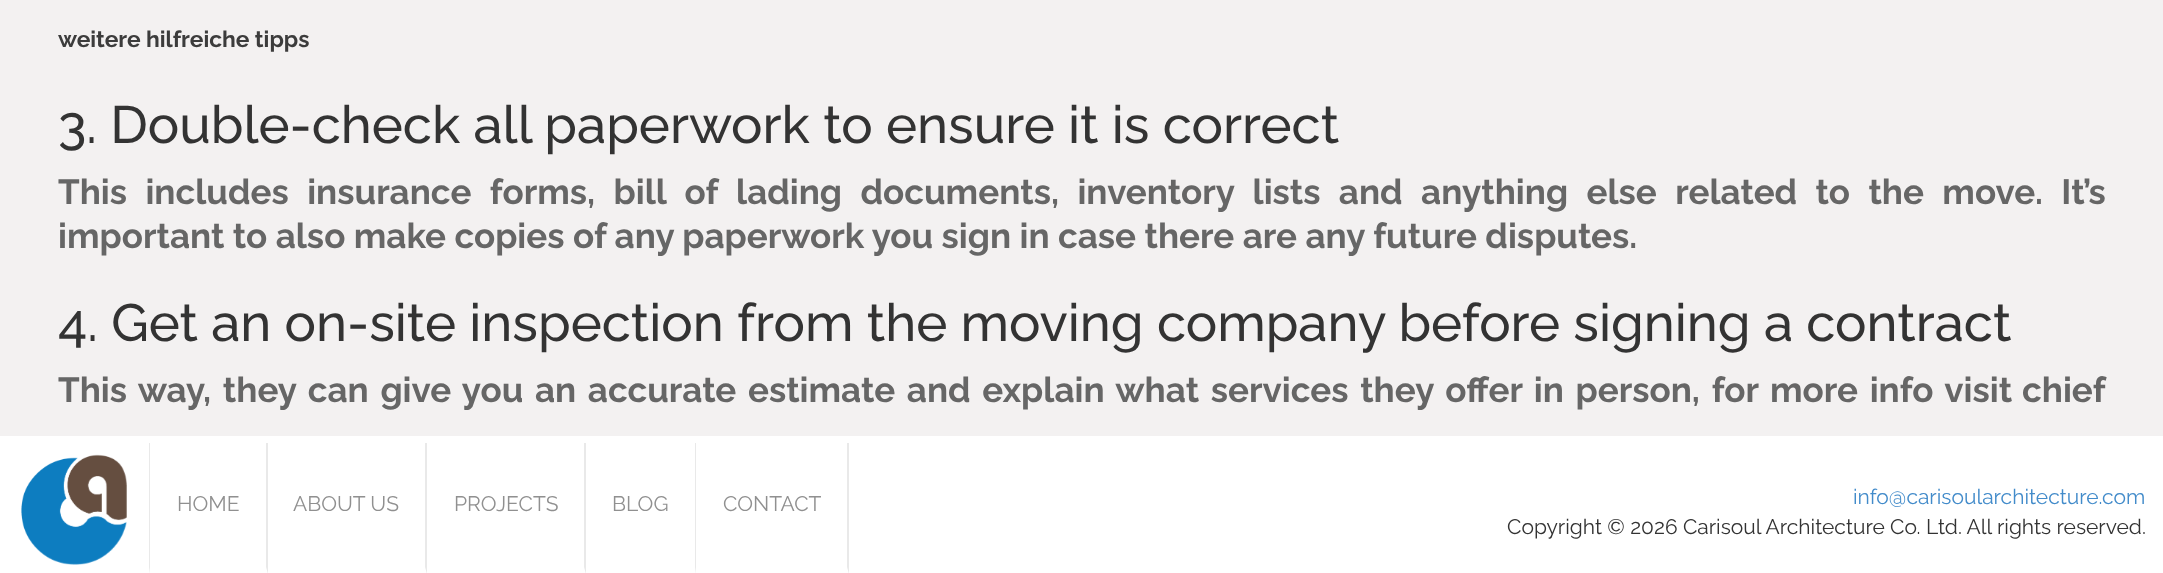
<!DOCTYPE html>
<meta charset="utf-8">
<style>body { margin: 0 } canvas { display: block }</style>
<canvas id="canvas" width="2163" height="573"></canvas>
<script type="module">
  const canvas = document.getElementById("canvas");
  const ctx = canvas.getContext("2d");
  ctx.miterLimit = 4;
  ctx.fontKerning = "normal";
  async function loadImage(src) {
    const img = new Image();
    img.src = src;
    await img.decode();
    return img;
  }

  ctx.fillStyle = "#f3f1f1";
  ctx.fillRect(0, 0, 2163, 573);
  ctx.font = "bold 22.75px Raleway";
  ctx.fillStyle = "#3c3c3c";
  ctx.fillText("weitere hilfreiche tipps", 58, 47);
  ctx.font = "500 52.5px Raleway";
  ctx.fillStyle = "#333333";
  ctx.fillText("3. Double-check all paperwork to ensure it is correct", 58, 143);
  ctx.wordSpacing = "10px";
  ctx.font = "bold 35px Raleway";
  ctx.fillStyle = "#666666";
  ctx.fillText("This includes insurance forms, bill of lading documents, inventory lists and anything else related to the move. It’s", 58, 204);
  ctx.wordSpacing = "0px";
  ctx.fillText("important to also make copies of any paperwork you sign in case there are any future disputes.", 58, 248);
  ctx.font = "500 52.5px Raleway";
  ctx.fillStyle = "#333333";
  ctx.fillText("4. Get an on-site inspection from the moving company before signing a contract", 58, 341);
  ctx.wordSpacing = "3.25px";
  ctx.font = "bold 35px Raleway";
  ctx.fillStyle = "#666666";
  ctx.fillText("This way, they can give you an accurate estimate and explain what services they offer in person, for more info visit", 58, 402);
  ctx.wordSpacing = "0px";
  ctx.fillText("chief", 2022, 402);
  ctx.fillStyle = "#ffffff";
  ctx.fillRect(0, 436, 2163, 137);
  ctx.drawImage(await loadImage("img1.png"), 21, 454, 106, 111);
  ctx.fillStyle = "#e9e9e9";
  ctx.beginPath();
  ctx.moveTo(268, 443);
  ctx.lineTo(268, 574);
  ctx.lineTo(266, 567);
  ctx.lineTo(266, 443);
  ctx.closePath();
  ctx.fill();
  ctx.beginPath();
  ctx.moveTo(149, 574);
  ctx.lineTo(149, 443);
  ctx.lineTo(150, 443);
  ctx.lineTo(150, 567);
  ctx.closePath();
  ctx.fill();
  ctx.font = "21px Raleway";
  ctx.fillStyle = "#909090";
  ctx.fillText("HOME", 177, 511);
  ctx.fillStyle = "#e9e9e9";
  ctx.beginPath();
  ctx.moveTo(427, 443);
  ctx.lineTo(427, 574);
  ctx.lineTo(425, 567);
  ctx.lineTo(425, 443);
  ctx.closePath();
  ctx.fill();
  ctx.fillStyle = "#909090";
  ctx.fillText("ABOUT US", 293, 511);
  ctx.fillStyle = "#e9e9e9";
  ctx.beginPath();
  ctx.moveTo(586, 443);
  ctx.lineTo(586, 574);
  ctx.lineTo(584, 567);
  ctx.lineTo(584, 443);
  ctx.closePath();
  ctx.fill();
  ctx.fillStyle = "#909090";
  ctx.fillText("PROJECTS", 454, 511);
  ctx.fillStyle = "#e9e9e9";
  ctx.beginPath();
  ctx.moveTo(696, 443);
  ctx.lineTo(696, 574);
  ctx.lineTo(695, 567);
  ctx.lineTo(695, 443);
  ctx.closePath();
  ctx.fill();
  ctx.fillStyle = "#909090";
  ctx.fillText("BLOG", 612, 511);
  ctx.fillStyle = "#e9e9e9";
  ctx.beginPath();
  ctx.moveTo(849, 443);
  ctx.lineTo(849, 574);
  ctx.lineTo(847, 567);
  ctx.lineTo(847, 443);
  ctx.closePath();
  ctx.fill();
  ctx.fillStyle = "#909090";
  ctx.fillText("CONTACT", 723, 511);
  ctx.fillStyle = "#428bca";
  ctx.fillText("info@carisoularchitecture.com", 1853, 504);
  ctx.fillStyle = "#333333";
  ctx.fillText("Copyright © 2026 Carisoul Architecture Co. Ltd. All rights reserved.", 1507, 534);
</script>
